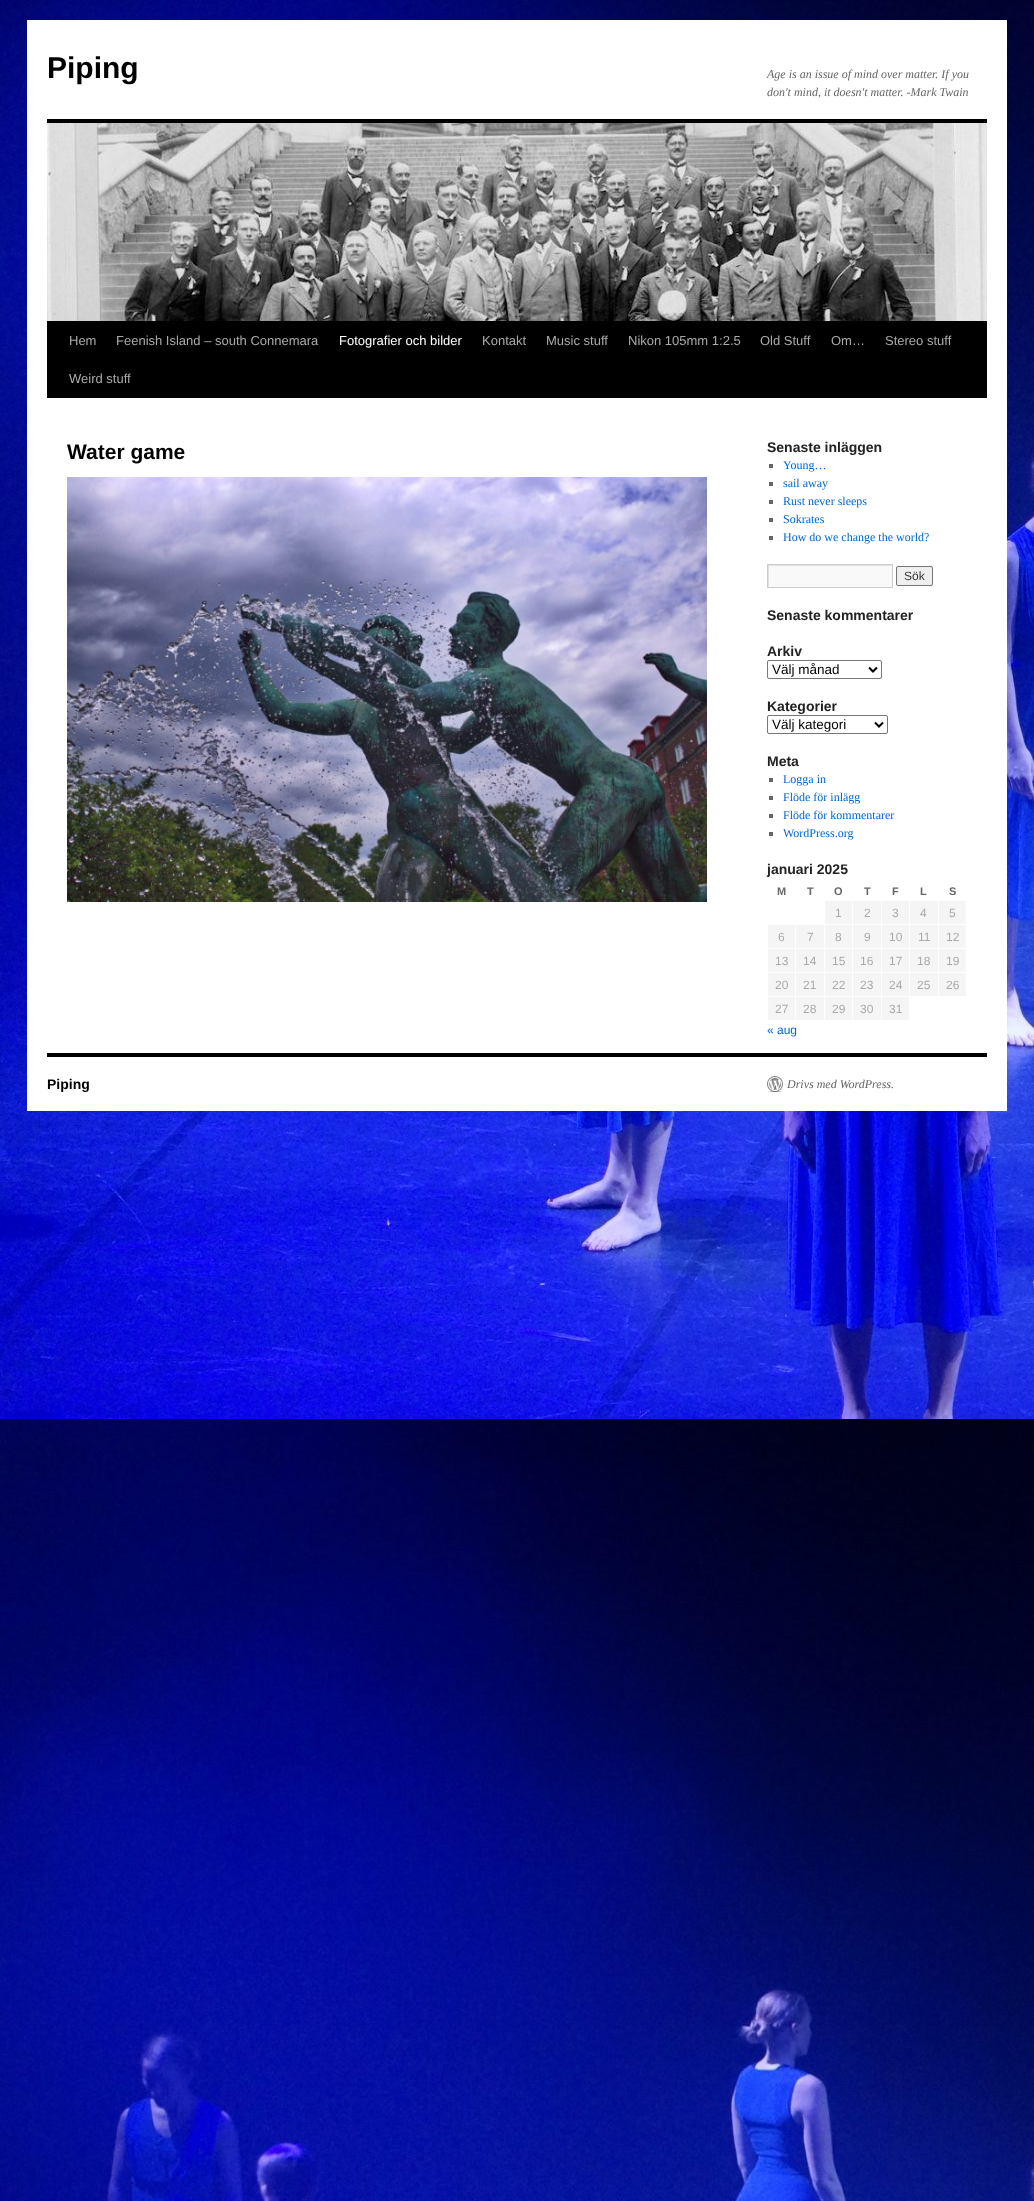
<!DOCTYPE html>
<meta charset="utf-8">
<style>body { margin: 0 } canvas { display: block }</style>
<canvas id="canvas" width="1034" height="2201"></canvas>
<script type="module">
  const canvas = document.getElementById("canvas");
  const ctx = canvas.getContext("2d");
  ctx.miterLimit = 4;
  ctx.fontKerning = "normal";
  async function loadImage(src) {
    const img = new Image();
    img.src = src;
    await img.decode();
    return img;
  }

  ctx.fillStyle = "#ffffff";
  ctx.fillRect(0, 0, 1034, 2201);
  ctx.drawImage(await loadImage("img1.png"), 0, 0, 1034, 2201);
  ctx.fillRect(27, 20, 980, 1091);
  ctx.font = "bold 30px Liberation Sans";
  ctx.fillStyle = "#000000";
  ctx.fillText("Piping", 47, 78);
  ctx.font = "italic 12px Liberation Serif";
  ctx.fillStyle = "#666666";
  ctx.fillText("Age is an issue of mind over matter. If you", 767, 78);
  ctx.fillText("don't mind, it doesn't matter. -Mark Twain", 767, 96);
  ctx.fillStyle = "#000000";
  ctx.fillRect(47, 119, 940, 4);
  ctx.fillRect(47, 321, 940, 77);
  ctx.drawImage(await loadImage("img2.png"), 47, 123, 940, 198);
  ctx.font = "13px Liberation Sans";
  ctx.fillStyle = "#aaaaaa";
  ctx.fillText("Hem", 69, 345);
  ctx.fillText("Feenish Island – south Connemara", 116, 345);
  ctx.fillStyle = "#ffffff";
  ctx.fillText("Fotografier och bilder", 339, 345);
  ctx.fillStyle = "#aaaaaa";
  ctx.fillText("Kontakt", 482, 345);
  ctx.fillText("Music stuff", 546, 345);
  ctx.fillText("Nikon 105mm 1:2.5", 628, 345);
  ctx.fillText("Old Stuff", 760, 345);
  ctx.fillText("Om…", 831, 345);
  ctx.fillText("Stereo stuff", 885, 345);
  ctx.fillText("Weird stuff", 69, 383);
  ctx.font = "bold 21px Liberation Sans";
  ctx.fillStyle = "#000000";
  ctx.fillText("Water game", 67, 459);
  ctx.drawImage(await loadImage("img3.png"), 67, 477, 640, 425);
  ctx.font = "bold 14px Liberation Sans";
  ctx.fillStyle = "#222222";
  ctx.fillText("Senaste inläggen", 767, 452);
  ctx.fillStyle = "#666666";
  ctx.fillRect(769, 464, 4, 4);
  ctx.font = "12px Liberation Serif";
  ctx.fillStyle = "#0066cc";
  ctx.fillText("Young…", 783, 469);
  ctx.fillStyle = "#666666";
  ctx.fillRect(769, 482, 4, 4);
  ctx.fillStyle = "#0066cc";
  ctx.fillText("sail away", 783, 487);
  ctx.fillStyle = "#666666";
  ctx.fillRect(769, 500, 4, 4);
  ctx.fillStyle = "#0066cc";
  ctx.fillText("Rust never sleeps", 783, 505);
  ctx.fillStyle = "#666666";
  ctx.fillRect(769, 518, 4, 4);
  ctx.fillStyle = "#0066cc";
  ctx.fillText("Sokrates", 783, 523);
  ctx.fillStyle = "#666666";
  ctx.fillRect(769, 536, 4, 4);
  ctx.fillStyle = "#0066cc";
  ctx.fillText("How do we change the world?", 783, 541);
  ctx.fillStyle = "#f9f9f9";
  ctx.fillRect(769, 566, 123, 21);
  ctx.save();
  ctx.beginPath();
  ctx.rect(768, 565, 124, 22);
  ctx.clip();
  ctx.fillStyle = "#e0e0e0";
  ctx.beginPath();
  ctx.moveTo(669, 466);
  ctx.lineTo(991, 466);
  ctx.lineTo(991, 686);
  ctx.lineTo(669, 686);
  ctx.closePath();
  ctx.moveTo(769, 566);
  ctx.lineTo(893, 566);
  ctx.lineTo(893, 588);
  ctx.lineTo(769, 588);
  ctx.closePath();
  ctx.fill("evenodd");
  ctx.restore();
  ctx.strokeStyle = "#cccccc";
  ctx.strokeRect(767.5, 564.5, 125, 23);
  ctx.fillStyle = "#efefef";
  ctx.beginPath();
  ctx.roundRect(896.5, 566.5, 36, 19, 1.5);
  ctx.fill();
  ctx.strokeStyle = "#767676";
  ctx.stroke();
  ctx.font = "12px Liberation Sans";
  ctx.fillStyle = "#333333";
  ctx.fillText("Sök", 904, 580);
  ctx.font = "bold 14px Liberation Sans";
  ctx.fillStyle = "#222222";
  ctx.fillText("Senaste kommentarer", 767, 620);
  ctx.fillText("Arkiv", 767, 656);
  ctx.beginPath();
  ctx.roundRect(767.5, 660.5, 114, 18, 1.5);
  ctx.stroke();
  ctx.beginPath();
  ctx.moveTo(869, 667.5);
  ctx.lineTo(873, 671.5);
  ctx.lineTo(877, 667.5);
  ctx.strokeStyle = "#000000";
  ctx.lineWidth = 2;
  ctx.stroke();
  ctx.font = "13.5px Liberation Sans";
  ctx.fillStyle = "#000000";
  ctx.fillText("Välj månad", 772, 674);
  ctx.font = "bold 14px Liberation Sans";
  ctx.fillStyle = "#222222";
  ctx.fillText("Kategorier", 767, 711);
  ctx.beginPath();
  ctx.roundRect(767.5, 715.5, 120, 18, 1.5);
  ctx.strokeStyle = "#767676";
  ctx.lineWidth = 1;
  ctx.stroke();
  ctx.beginPath();
  ctx.moveTo(875, 722.5);
  ctx.lineTo(879, 726.5);
  ctx.lineTo(883, 722.5);
  ctx.strokeStyle = "#000000";
  ctx.lineWidth = 2;
  ctx.stroke();
  ctx.font = "13.5px Liberation Sans";
  ctx.fillStyle = "#000000";
  ctx.fillText("Välj kategori", 772, 729);
  ctx.font = "bold 14px Liberation Sans";
  ctx.fillStyle = "#222222";
  ctx.fillText("Meta", 767, 766);
  ctx.fillStyle = "#666666";
  ctx.fillRect(769, 778, 4, 4);
  ctx.font = "12px Liberation Serif";
  ctx.fillStyle = "#0066cc";
  ctx.fillText("Logga in", 783, 783);
  ctx.fillStyle = "#666666";
  ctx.fillRect(769, 796, 4, 4);
  ctx.fillStyle = "#0066cc";
  ctx.fillText("Flöde för inlägg", 783, 801);
  ctx.fillStyle = "#666666";
  ctx.fillRect(769, 814, 4, 4);
  ctx.fillStyle = "#0066cc";
  ctx.fillText("Flöde för kommentarer", 783, 819);
  ctx.fillStyle = "#666666";
  ctx.fillRect(769, 832, 4, 4);
  ctx.fillStyle = "#0066cc";
  ctx.fillText("WordPress.org", 783, 837);
  ctx.font = "bold 14px Liberation Sans";
  ctx.fillStyle = "#222222";
  ctx.fillText("januari 2025", 767, 874);
  ctx.font = "bold 11px Liberation Sans";
  ctx.fillStyle = "#666666";
  ctx.fillText("M", 777, 895);
  ctx.fillText("T", 807, 895);
  ctx.fillText("O", 834, 895);
  ctx.fillText("T", 864, 895);
  ctx.fillText("F", 892, 895);
  ctx.fillText("L", 920, 895);
  ctx.fillText("S", 949, 895);
  ctx.fillStyle = "#f5f5f5";
  ctx.fillRect(825, 901, 27, 23);
  ctx.font = "12px Liberation Sans";
  ctx.fillStyle = "#aaaaaa";
  ctx.fillText("1", 835, 917);
  ctx.fillStyle = "#f5f5f5";
  ctx.fillRect(853, 901, 28, 23);
  ctx.fillStyle = "#aaaaaa";
  ctx.fillText("2", 864, 917);
  ctx.fillStyle = "#f5f5f5";
  ctx.fillRect(882, 901, 27, 23);
  ctx.fillStyle = "#aaaaaa";
  ctx.fillText("3", 892, 917);
  ctx.fillStyle = "#f5f5f5";
  ctx.fillRect(910, 901, 28, 23);
  ctx.fillStyle = "#aaaaaa";
  ctx.fillText("4", 920, 917);
  ctx.fillStyle = "#f5f5f5";
  ctx.fillRect(939, 901, 27, 23);
  ctx.fillStyle = "#aaaaaa";
  ctx.fillText("5", 949, 917);
  ctx.fillStyle = "#f5f5f5";
  ctx.fillRect(768, 925, 27, 23);
  ctx.fillStyle = "#aaaaaa";
  ctx.fillText("6", 778, 941);
  ctx.fillStyle = "#f5f5f5";
  ctx.fillRect(796, 925, 28, 23);
  ctx.fillStyle = "#aaaaaa";
  ctx.fillText("7", 807, 941);
  ctx.fillStyle = "#f5f5f5";
  ctx.fillRect(825, 925, 27, 23);
  ctx.fillStyle = "#aaaaaa";
  ctx.fillText("8", 835, 941);
  ctx.fillStyle = "#f5f5f5";
  ctx.fillRect(853, 925, 28, 23);
  ctx.fillStyle = "#aaaaaa";
  ctx.fillText("9", 864, 941);
  ctx.fillStyle = "#f5f5f5";
  ctx.fillRect(882, 925, 27, 23);
  ctx.fillStyle = "#aaaaaa";
  ctx.fillText("10", 889, 941);
  ctx.fillStyle = "#f5f5f5";
  ctx.fillRect(910, 925, 28, 23);
  ctx.fillStyle = "#aaaaaa";
  ctx.fillText("11", 918, 941);
  ctx.fillStyle = "#f5f5f5";
  ctx.fillRect(939, 925, 27, 23);
  ctx.fillStyle = "#aaaaaa";
  ctx.fillText("12", 946, 941);
  ctx.fillStyle = "#f5f5f5";
  ctx.fillRect(768, 949, 27, 23);
  ctx.fillStyle = "#aaaaaa";
  ctx.fillText("13", 775, 965);
  ctx.fillStyle = "#f5f5f5";
  ctx.fillRect(796, 949, 28, 23);
  ctx.fillStyle = "#aaaaaa";
  ctx.fillText("14", 803, 965);
  ctx.fillStyle = "#f5f5f5";
  ctx.fillRect(825, 949, 27, 23);
  ctx.fillStyle = "#aaaaaa";
  ctx.fillText("15", 832, 965);
  ctx.fillStyle = "#f5f5f5";
  ctx.fillRect(853, 949, 28, 23);
  ctx.fillStyle = "#aaaaaa";
  ctx.fillText("16", 860, 965);
  ctx.fillStyle = "#f5f5f5";
  ctx.fillRect(882, 949, 27, 23);
  ctx.fillStyle = "#aaaaaa";
  ctx.fillText("17", 889, 965);
  ctx.fillStyle = "#f5f5f5";
  ctx.fillRect(910, 949, 28, 23);
  ctx.fillStyle = "#aaaaaa";
  ctx.fillText("18", 917, 965);
  ctx.fillStyle = "#f5f5f5";
  ctx.fillRect(939, 949, 27, 23);
  ctx.fillStyle = "#aaaaaa";
  ctx.fillText("19", 946, 965);
  ctx.fillStyle = "#f5f5f5";
  ctx.fillRect(768, 973, 27, 23);
  ctx.fillStyle = "#aaaaaa";
  ctx.fillText("20", 775, 989);
  ctx.fillStyle = "#f5f5f5";
  ctx.fillRect(796, 973, 28, 23);
  ctx.fillStyle = "#aaaaaa";
  ctx.fillText("21", 803, 989);
  ctx.fillStyle = "#f5f5f5";
  ctx.fillRect(825, 973, 27, 23);
  ctx.fillStyle = "#aaaaaa";
  ctx.fillText("22", 832, 989);
  ctx.fillStyle = "#f5f5f5";
  ctx.fillRect(853, 973, 28, 23);
  ctx.fillStyle = "#aaaaaa";
  ctx.fillText("23", 860, 989);
  ctx.fillStyle = "#f5f5f5";
  ctx.fillRect(882, 973, 27, 23);
  ctx.fillStyle = "#aaaaaa";
  ctx.fillText("24", 889, 989);
  ctx.fillStyle = "#f5f5f5";
  ctx.fillRect(910, 973, 28, 23);
  ctx.fillStyle = "#aaaaaa";
  ctx.fillText("25", 917, 989);
  ctx.fillStyle = "#f5f5f5";
  ctx.fillRect(939, 973, 27, 23);
  ctx.fillStyle = "#aaaaaa";
  ctx.fillText("26", 946, 989);
  ctx.fillStyle = "#f5f5f5";
  ctx.fillRect(768, 997, 27, 23);
  ctx.fillStyle = "#aaaaaa";
  ctx.fillText("27", 775, 1013);
  ctx.fillStyle = "#f5f5f5";
  ctx.fillRect(796, 997, 28, 23);
  ctx.fillStyle = "#aaaaaa";
  ctx.fillText("28", 803, 1013);
  ctx.fillStyle = "#f5f5f5";
  ctx.fillRect(825, 997, 27, 23);
  ctx.fillStyle = "#aaaaaa";
  ctx.fillText("29", 832, 1013);
  ctx.fillStyle = "#f5f5f5";
  ctx.fillRect(853, 997, 28, 23);
  ctx.fillStyle = "#aaaaaa";
  ctx.fillText("30", 860, 1013);
  ctx.fillStyle = "#f5f5f5";
  ctx.fillRect(882, 997, 27, 23);
  ctx.fillStyle = "#aaaaaa";
  ctx.fillText("31", 889, 1013);
  ctx.fillStyle = "#0066cc";
  ctx.fillText("« aug", 767, 1034);
  ctx.fillStyle = "#000000";
  ctx.fillRect(47, 1053, 940, 4);
  ctx.font = "bold 14px Liberation Sans";
  ctx.fillText("Piping", 47, 1089);
  ctx.drawImage(await loadImage("img4.png"), 767, 1076, 16, 16);
  ctx.font = "italic 12px Liberation Serif";
  ctx.fillStyle = "#666666";
  ctx.fillText("Drivs med WordPress.", 787, 1088);
</script>
